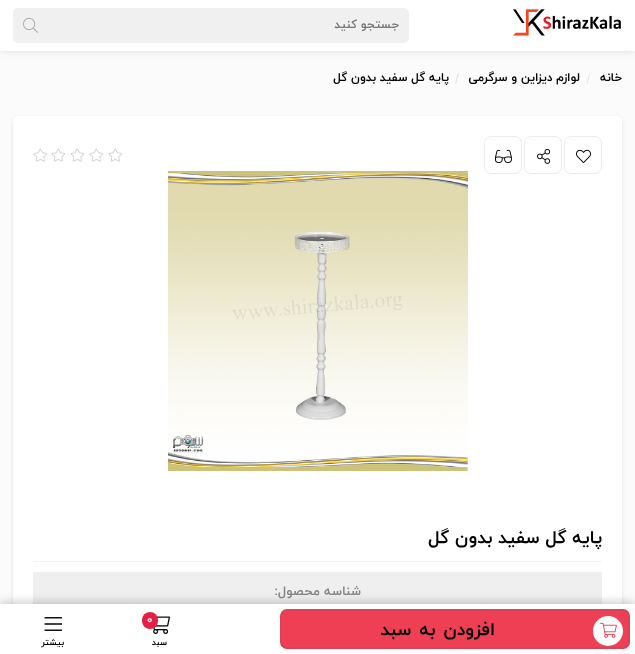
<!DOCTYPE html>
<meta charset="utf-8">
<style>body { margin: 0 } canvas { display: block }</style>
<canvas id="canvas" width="635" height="654"></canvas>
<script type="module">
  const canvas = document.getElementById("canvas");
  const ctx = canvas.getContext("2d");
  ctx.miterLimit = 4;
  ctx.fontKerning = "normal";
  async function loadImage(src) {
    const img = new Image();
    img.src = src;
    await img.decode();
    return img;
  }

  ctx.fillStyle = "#fcfbfb";
  ctx.fillRect(0, 0, 635, 654);
  ctx.fillStyle = "rgba(0, 0, 0, 0.2)";
  ctx.filter = "blur(5px)";
  ctx.beginPath();
  ctx.rect(0, -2, 635, 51);
  ctx.fill();
  ctx.filter = "none";
  ctx.fillStyle = "#ffffff";
  ctx.fillRect(0, 0, 635, 51);
  ctx.drawImage(await loadImage("img1.png"), 513, 9, 108, 27);
  ctx.fillStyle = "#f0f0f1";
  ctx.beginPath();
  ctx.roundRect(13, 8, 396, 35, 5);
  ctx.fill();
  ctx.direction = "rtl";
  ctx.font = "bold 12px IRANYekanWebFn";
  ctx.fillStyle = "#757575";
  ctx.fillText("جستجو كنيد", 399, 28);
  ctx.drawImage(await loadImage("img2.png"), 23, 17, 15, 16);
  ctx.fillStyle = "#000000";
  ctx.fillText("خانه", 622, 81);
  ctx.fillStyle = "#e0e0e2";
  ctx.beginPath();
  ctx.moveTo(589.5, 72.5);
  ctx.lineTo(590, 73);
  ctx.lineTo(587.5, 83.5);
  ctx.lineTo(586.5, 83.5);
  ctx.closePath();
  ctx.fill();
  ctx.fillStyle = "#000000";
  ctx.fillText("لوازم دیزاین و سرگرمی", 580, 81);
  ctx.fillStyle = "#e0e0e2";
  ctx.beginPath();
  ctx.moveTo(458, 72.5);
  ctx.lineTo(459, 73);
  ctx.lineTo(456, 83.5);
  ctx.lineTo(455, 83.5);
  ctx.closePath();
  ctx.fill();
  ctx.fillStyle = "#000000";
  ctx.fillText("پایه گل سفید بدون گل", 449, 81);
  ctx.fillStyle = "rgba(0, 0, 0, 0.1)";
  ctx.filter = "blur(2px)";
  ctx.beginPath();
  ctx.roundRect(13, 118, 609, 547, 5);
  ctx.fill();
  ctx.filter = "none";
  ctx.fillStyle = "#ffffff";
  ctx.beginPath();
  ctx.roundRect(13, 116, 609, 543, 5);
  ctx.fill();
  ctx.beginPath();
  ctx.roundRect(564.5, 136.5, 37, 37, 6.5);
  ctx.strokeStyle = "#ececec";
  ctx.stroke();
  ctx.drawImage(await loadImage("img3.png"), 576, 149, 15, 14);
  ctx.beginPath();
  ctx.roundRect(524.5, 136.5, 37, 37, 6.5);
  ctx.stroke();
  ctx.drawImage(await loadImage("img4.png"), 537, 148, 14, 16);
  ctx.beginPath();
  ctx.roundRect(484.5, 136.5, 37, 37, 6.5);
  ctx.stroke();
  ctx.drawImage(await loadImage("img5.png"), 495, 149, 17, 14);
  ctx.drawImage(await loadImage("img6.png"), 168, 171, 300, 300);
  ctx.drawImage(await loadImage("img7.png"), 108, 148, 14, 14);
  ctx.drawImage(await loadImage("img7.png"), 89, 148, 14, 14);
  ctx.drawImage(await loadImage("img7.png"), 70, 148, 14, 14);
  ctx.drawImage(await loadImage("img7.png"), 51, 148, 14, 14);
  ctx.drawImage(await loadImage("img7.png"), 33, 148, 14, 14);
  ctx.fillStyle = "#f2f2f2";
  ctx.fillRect(33, 561, 569, 1);
  ctx.font = "bold 18px IRANYekanWebFn";
  ctx.fillStyle = "#000000";
  ctx.fillText("پایه گل سفید بدون گل", 602, 543);
  ctx.fillStyle = "#efefef";
  ctx.fillRect(33, 572, 569, 32);
  ctx.font = "bold 13px IRANYekanWebFn";
  ctx.fillStyle = "#858585";
  ctx.fillText("شناسه محصول:", 361, 595);
  ctx.fillStyle = "rgba(0, 0, 0, 0.2)";
  ctx.filter = "blur(5px)";
  ctx.beginPath();
  ctx.rect(0, 602, 635, 50);
  ctx.fill();
  ctx.filter = "none";
  ctx.fillStyle = "#ffffff";
  ctx.fillRect(0, 604, 635, 50);
  ctx.fillStyle = "#ef3f54";
  ctx.beginPath();
  ctx.roundRect(280, 609, 350, 40, 7);
  ctx.fill();
  ctx.beginPath();
  ctx.roundRect(281, 610, 348, 38, 6);
  ctx.strokeStyle = "rgba(96, 96, 96, 0.15)";
  ctx.lineWidth = 2;
  ctx.stroke();
  ctx.fillStyle = "#ffffff";
  ctx.beginPath();
  ctx.arc(608, 631, 15, 0, Math.PI * 2);
  ctx.fill();
  ctx.drawImage(await loadImage("img8.png"), 600, 622, 17, 16);
  ctx.letterSpacing = "-0.5px";
  ctx.wordSpacing = "3px";
  ctx.font = "bold 18px IRANYekanWebFn";
  ctx.fillStyle = "#000000";
  ctx.fillText("افزودن به سبد", 495, 635);
  ctx.drawImage(await loadImage("img9.png"), 153, 616, 17, 18);
  ctx.fillStyle = "#e41e44";
  ctx.beginPath();
  ctx.roundRect(142, 612, 16, 17, 8);
  ctx.fill();
  ctx.letterSpacing = "0px";
  ctx.wordSpacing = "0px";
  ctx.direction = "ltr";
  ctx.font = "bold 11px IRANYekanWebFn";
  ctx.fillStyle = "#ffffff";
  ctx.fillText("0", 147, 623);
  ctx.direction = "rtl";
  ctx.font = "bold 9px IRANYekanWebFn";
  ctx.fillStyle = "#000000";
  ctx.fillText("سبد", 167, 645);
  ctx.drawImage(await loadImage("img10.png"), 44, 617, 18, 14);
  ctx.fillText("بیشتر", 64, 645);
</script>
